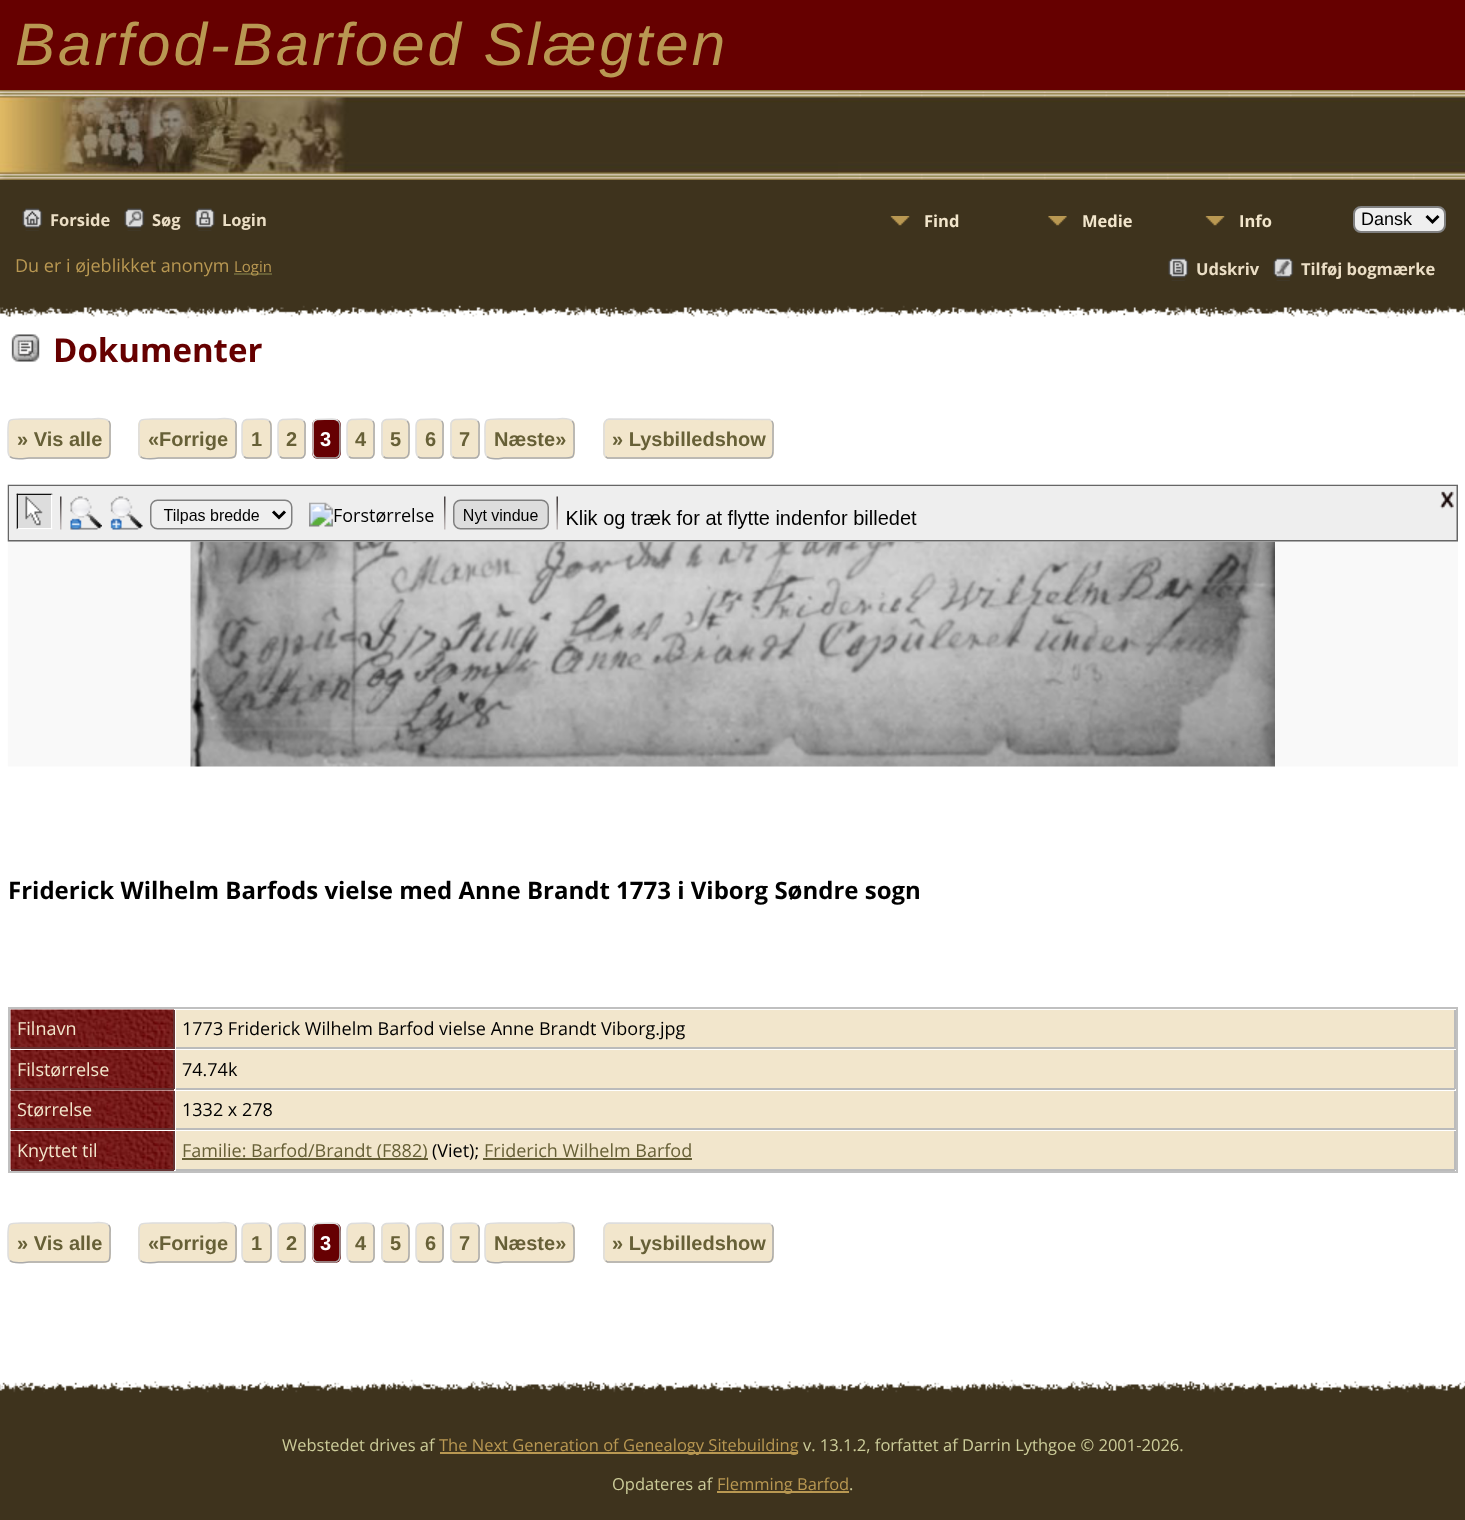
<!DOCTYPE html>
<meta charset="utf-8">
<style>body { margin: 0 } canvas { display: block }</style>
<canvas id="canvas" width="1465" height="1520"></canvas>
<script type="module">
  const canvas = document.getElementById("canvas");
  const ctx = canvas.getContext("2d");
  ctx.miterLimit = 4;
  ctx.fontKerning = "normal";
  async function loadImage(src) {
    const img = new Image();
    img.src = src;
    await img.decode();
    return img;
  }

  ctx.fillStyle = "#3e331d";
  ctx.fillRect(0, 0, 1465, 1520);
  ctx.fillStyle = "#660000";
  ctx.fillRect(0, 0, 1465, 90);
  ctx.letterSpacing = "3px";
  ctx.font = "italic 60px Liberation Sans";
  ctx.fillStyle = "#b99852";
  ctx.fillText("Barfod-Barfoed Slægten", 15, 65);
  ctx.drawImage(await loadImage("img1.png"), 838, 90, 627, 90);
  ctx.drawImage(await loadImage("img2.png"), 0, 90, 838, 90);
  ctx.drawImage(await loadImage("img3.png"), 22, 208, 21, 23);
  ctx.letterSpacing = "0px";
  ctx.font = "bold 16.5px Open Sans";
  ctx.fillStyle = "#ebdec5";
  ctx.fillText("Forside", 50, 226);
  ctx.drawImage(await loadImage("img4.png"), 124, 208, 21, 23);
  ctx.fillText("Søg", 152, 226);
  ctx.drawImage(await loadImage("img5.png"), 195, 208, 20, 23);
  ctx.fillText("Login", 222, 226);
  ctx.drawImage(await loadImage("img6.png"), 890, 216, 20, 10);
  ctx.fillStyle = "#f2e6cc";
  ctx.fillText("Find", 924, 227);
  ctx.drawImage(await loadImage("img7.png"), 1048, 216, 19, 10);
  ctx.fillText("Medie", 1082, 227);
  ctx.drawImage(await loadImage("img8.png"), 1205, 216, 20, 10);
  ctx.fillText("Info", 1239, 227);
  ctx.fillStyle = "#efefef";
  ctx.beginPath();
  ctx.roundRect(1354, 207, 91, 25, 7);
  ctx.fill();
  ctx.strokeStyle = "#808080";
  ctx.lineWidth = 2;
  ctx.stroke();
  ctx.beginPath();
  ctx.moveTo(1426.5, 216);
  ctx.lineTo(1432.5, 222);
  ctx.lineTo(1438.5, 216);
  ctx.strokeStyle = "#000000";
  ctx.lineWidth = 3;
  ctx.stroke();
  ctx.font = "18px Liberation Sans";
  ctx.fillStyle = "#000000";
  ctx.fillText("Dansk", 1361, 225);
  ctx.font = "18px Open Sans";
  ctx.fillStyle = "#b99852";
  ctx.fillText("Du er i øjeblikket anonym", 15, 272);
  ctx.fillStyle = "#676037";
  ctx.fillRect(234, 273, 38, 2);
  ctx.font = "15px Open Sans";
  ctx.fillStyle = "#b99852";
  ctx.fillText("Login", 234, 272);
  ctx.drawImage(await loadImage("img9.png"), 1168, 257, 21, 24);
  ctx.font = "bold 16.5px Open Sans";
  ctx.fillStyle = "#ebdec5";
  ctx.fillText("Udskriv", 1196, 275);
  ctx.drawImage(await loadImage("img10.png"), 1273, 257, 21, 24);
  ctx.fillText("Tilføj bogmærke", 1301, 275);
  ctx.drawImage(await loadImage("img11.png"), 0, 305, 1465, 19);
  ctx.fillStyle = "#ffffff";
  ctx.fillRect(0, 324, 1465, 1049);
  ctx.drawImage(await loadImage("img12.png"), 11, 334, 29, 28);
  ctx.font = "bold 33px Open Sans";
  ctx.fillStyle = "#660000";
  ctx.fillText("Dokumenter", 53, 362);
  ctx.fillStyle = "#f2e6cc";
  ctx.beginPath();
  ctx.roundRect(8, 419, 103, 40, 6);
  ctx.fill();
  ctx.beginPath();
  ctx.moveTo(108.5, 421);
  ctx.bezierCurveTo(111, 423, 110, 426.5, 110, 429);
  ctx.lineTo(110, 439);
  ctx.bezierCurveTo(110, 461, 113, 458, 90, 458);
  ctx.lineTo(29, 458);
  ctx.bezierCurveTo(27, 458, 13.5, 460.5, 10, 456.5);
  ctx.strokeStyle = "#aaaaaa";
  ctx.lineWidth = 1.5;
  ctx.stroke();
  ctx.beginPath();
  ctx.moveTo(10, 456.5);
  ctx.bezierCurveTo(7.5, 454.5, 8, 451, 8, 448);
  ctx.lineTo(8, 439);
  ctx.bezierCurveTo(8, 416.5, 5.5, 419, 29, 419);
  ctx.lineTo(90, 419);
  ctx.bezierCurveTo(91.5, 419, 105, 417, 108.5, 421);
  ctx.strokeStyle = "#dddddd";
  ctx.stroke();
  ctx.font = "bold 20px Liberation Sans";
  ctx.fillStyle = "#676037";
  ctx.fillText("» Vis alle", 17, 446);
  ctx.fillStyle = "#f2e6cc";
  ctx.beginPath();
  ctx.roundRect(138, 419, 99, 40, 6);
  ctx.fill();
  ctx.beginPath();
  ctx.moveTo(234.5, 421);
  ctx.bezierCurveTo(237, 423, 236, 426.5, 236, 429);
  ctx.lineTo(236, 439);
  ctx.bezierCurveTo(236, 460.5, 239, 458, 216.5, 458);
  ctx.lineTo(158.5, 458);
  ctx.bezierCurveTo(158.5, 458, 144, 460.5, 140.5, 456.5);
  ctx.strokeStyle = "#aaaaaa";
  ctx.stroke();
  ctx.beginPath();
  ctx.moveTo(140.5, 456.5);
  ctx.bezierCurveTo(138, 454.5, 139, 451, 139, 448);
  ctx.lineTo(139, 439);
  ctx.bezierCurveTo(139, 417, 136, 419, 158.5, 419);
  ctx.lineTo(216.5, 419);
  ctx.bezierCurveTo(216.5, 419, 231, 417, 234.5, 421);
  ctx.strokeStyle = "#dddddd";
  ctx.stroke();
  ctx.fillStyle = "#676037";
  ctx.fillText("«Forrige", 148, 446);
  ctx.fillStyle = "#f2e6cc";
  ctx.beginPath();
  ctx.roundRect(242, 419, 30, 40, 6);
  ctx.fill();
  ctx.beginPath();
  ctx.moveTo(269, 421);
  ctx.bezierCurveTo(271.5, 423, 271, 426.5, 271, 429);
  ctx.lineTo(271, 448);
  ctx.bezierCurveTo(271, 452, 271.5, 457, 266.5, 458);
  ctx.lineTo(250.5, 458);
  ctx.bezierCurveTo(248, 458, 245.5, 458.5, 244, 456.5);
  ctx.strokeStyle = "#aaaaaa";
  ctx.stroke();
  ctx.beginPath();
  ctx.moveTo(244, 456.5);
  ctx.bezierCurveTo(241.5, 454.5, 242, 451, 242, 448);
  ctx.lineTo(242, 429);
  ctx.bezierCurveTo(242, 425.5, 241.5, 420.5, 246.5, 419.5);
  ctx.lineTo(262.5, 419);
  ctx.bezierCurveTo(265, 419, 267.5, 419, 269, 421);
  ctx.strokeStyle = "#dddddd";
  ctx.stroke();
  ctx.fillStyle = "#676037";
  ctx.fillText("1", 251, 446);
  ctx.fillStyle = "#f2e6cc";
  ctx.beginPath();
  ctx.roundRect(278, 419, 28, 40, 6);
  ctx.fill();
  ctx.beginPath();
  ctx.moveTo(303.5, 421);
  ctx.bezierCurveTo(306, 423, 305, 426.5, 305, 429);
  ctx.lineTo(305, 448);
  ctx.bezierCurveTo(305, 452, 306, 457, 301, 458);
  ctx.lineTo(286, 458);
  ctx.bezierCurveTo(284, 458, 281.5, 458.5, 280, 456.5);
  ctx.strokeStyle = "#aaaaaa";
  ctx.stroke();
  ctx.beginPath();
  ctx.moveTo(280, 456.5);
  ctx.bezierCurveTo(277.5, 454.5, 278, 451, 278, 448);
  ctx.lineTo(278, 429);
  ctx.bezierCurveTo(278, 425.5, 277.5, 420.5, 282.5, 419.5);
  ctx.lineTo(297, 419);
  ctx.bezierCurveTo(299.5, 419, 302, 419, 303.5, 421);
  ctx.strokeStyle = "#dddddd";
  ctx.stroke();
  ctx.fillStyle = "#676037";
  ctx.fillText("2", 286, 446);
  ctx.fillStyle = "#660002";
  ctx.beginPath();
  ctx.roundRect(312, 419, 29, 40, 6);
  ctx.fill();
  ctx.beginPath();
  ctx.moveTo(338, 421);
  ctx.bezierCurveTo(340.5, 423, 340, 426.5, 340, 429);
  ctx.lineTo(340, 448);
  ctx.bezierCurveTo(340, 452, 340.5, 457, 335.5, 458);
  ctx.lineTo(321, 458);
  ctx.bezierCurveTo(318.5, 458, 316, 458.5, 314.5, 456.5);
  ctx.strokeStyle = "#aaaaaa";
  ctx.stroke();
  ctx.beginPath();
  ctx.moveTo(314.5, 456.5);
  ctx.bezierCurveTo(312, 454.5, 313, 451, 313, 448);
  ctx.lineTo(313, 429);
  ctx.bezierCurveTo(313, 425.5, 312, 420.5, 317, 419.5);
  ctx.lineTo(332, 419);
  ctx.bezierCurveTo(334, 419, 336.5, 419, 338, 421);
  ctx.strokeStyle = "#dddddd";
  ctx.stroke();
  ctx.fillStyle = "#ffffff";
  ctx.fillText("3", 320, 446);
  ctx.fillStyle = "#f2e6cc";
  ctx.beginPath();
  ctx.roundRect(347, 419, 28, 40, 6);
  ctx.fill();
  ctx.beginPath();
  ctx.moveTo(372.5, 421);
  ctx.bezierCurveTo(375, 423, 374, 426.5, 374, 429);
  ctx.lineTo(374, 448);
  ctx.bezierCurveTo(374, 452, 375, 457, 370, 458);
  ctx.lineTo(355, 458);
  ctx.bezierCurveTo(353, 458, 350.5, 458.5, 349, 456.5);
  ctx.strokeStyle = "#aaaaaa";
  ctx.stroke();
  ctx.beginPath();
  ctx.moveTo(349, 456.5);
  ctx.bezierCurveTo(346.5, 454.5, 347, 451, 347, 448);
  ctx.lineTo(347, 429);
  ctx.bezierCurveTo(347, 425.5, 346.5, 420.5, 351.5, 419.5);
  ctx.lineTo(366, 419);
  ctx.bezierCurveTo(368.5, 419, 371, 419, 372.5, 421);
  ctx.strokeStyle = "#dddddd";
  ctx.stroke();
  ctx.fillStyle = "#676037";
  ctx.fillText("4", 355, 446);
  ctx.fillStyle = "#f2e6cc";
  ctx.beginPath();
  ctx.roundRect(381, 419, 29, 40, 6);
  ctx.fill();
  ctx.beginPath();
  ctx.moveTo(407, 421);
  ctx.bezierCurveTo(409.5, 423, 409, 426.5, 409, 429);
  ctx.lineTo(409, 448);
  ctx.bezierCurveTo(409, 452, 409.5, 457, 404.5, 458);
  ctx.lineTo(390, 458);
  ctx.bezierCurveTo(387.5, 458, 385, 458.5, 383.5, 456.5);
  ctx.strokeStyle = "#aaaaaa";
  ctx.stroke();
  ctx.beginPath();
  ctx.moveTo(383.5, 456.5);
  ctx.bezierCurveTo(381, 454.5, 382, 451, 382, 448);
  ctx.lineTo(382, 429);
  ctx.bezierCurveTo(382, 425.5, 381, 420.5, 386, 419.5);
  ctx.lineTo(401, 419);
  ctx.bezierCurveTo(403, 419, 405.5, 419, 407, 421);
  ctx.strokeStyle = "#dddddd";
  ctx.stroke();
  ctx.fillStyle = "#676037";
  ctx.fillText("5", 390, 446);
  ctx.fillStyle = "#f2e6cc";
  ctx.beginPath();
  ctx.roundRect(416, 419, 28, 40, 6);
  ctx.fill();
  ctx.beginPath();
  ctx.moveTo(441.5, 421);
  ctx.bezierCurveTo(444, 423, 443, 426.5, 443, 429);
  ctx.lineTo(443, 448);
  ctx.bezierCurveTo(443, 452, 444, 457, 439, 458);
  ctx.lineTo(424, 458);
  ctx.bezierCurveTo(422, 458, 419.5, 458.5, 418, 456.5);
  ctx.strokeStyle = "#aaaaaa";
  ctx.stroke();
  ctx.beginPath();
  ctx.moveTo(418, 456.5);
  ctx.bezierCurveTo(415.5, 454.5, 416, 451, 416, 448);
  ctx.lineTo(416, 429);
  ctx.bezierCurveTo(416, 425.5, 415.5, 420.5, 420.5, 419.5);
  ctx.lineTo(435, 419);
  ctx.bezierCurveTo(437.5, 419, 440, 419, 441.5, 421);
  ctx.strokeStyle = "#dddddd";
  ctx.stroke();
  ctx.fillStyle = "#676037";
  ctx.fillText("6", 425, 446);
  ctx.fillStyle = "#f2e6cc";
  ctx.beginPath();
  ctx.roundRect(450, 419, 30, 40, 6);
  ctx.fill();
  ctx.beginPath();
  ctx.moveTo(477.5, 421);
  ctx.bezierCurveTo(480, 423, 479, 426.5, 479, 429);
  ctx.lineTo(479, 448);
  ctx.bezierCurveTo(479, 452, 480, 457, 475, 458);
  ctx.lineTo(459, 458);
  ctx.bezierCurveTo(456.5, 458, 454, 458.5, 452.5, 456.5);
  ctx.strokeStyle = "#aaaaaa";
  ctx.stroke();
  ctx.beginPath();
  ctx.moveTo(452.5, 456.5);
  ctx.bezierCurveTo(450, 454.5, 451, 451, 451, 448);
  ctx.lineTo(451, 429);
  ctx.bezierCurveTo(451, 425.5, 450, 420.5, 455, 419.5);
  ctx.lineTo(471, 419);
  ctx.bezierCurveTo(473.5, 419, 476, 419, 477.5, 421);
  ctx.strokeStyle = "#dddddd";
  ctx.stroke();
  ctx.fillStyle = "#676037";
  ctx.fillText("7", 459, 446);
  ctx.fillStyle = "#f2e6cc";
  ctx.beginPath();
  ctx.roundRect(485, 419, 90, 40, 6);
  ctx.fill();
  ctx.beginPath();
  ctx.moveTo(572, 421);
  ctx.bezierCurveTo(574.5, 423, 574, 426.5, 574, 429);
  ctx.lineTo(574, 439);
  ctx.bezierCurveTo(574, 460, 577, 458, 555.5, 458);
  ctx.lineTo(503.5, 458);
  ctx.bezierCurveTo(502.5, 458, 490.5, 460.5, 487, 456.5);
  ctx.strokeStyle = "#aaaaaa";
  ctx.stroke();
  ctx.beginPath();
  ctx.moveTo(487, 456.5);
  ctx.bezierCurveTo(484.5, 454.5, 485, 451, 485, 448);
  ctx.lineTo(485, 439);
  ctx.bezierCurveTo(485, 417.5, 482, 419, 503.5, 419);
  ctx.lineTo(555.5, 419);
  ctx.bezierCurveTo(556.5, 419, 568.5, 417, 572, 421);
  ctx.strokeStyle = "#dddddd";
  ctx.stroke();
  ctx.fillStyle = "#676037";
  ctx.fillText("Næste»", 494, 446);
  ctx.fillStyle = "#f2e6cc";
  ctx.beginPath();
  ctx.roundRect(603, 419, 171, 40, 6);
  ctx.fill();
  ctx.beginPath();
  ctx.moveTo(771.5, 421);
  ctx.bezierCurveTo(774, 423, 773, 426.5, 773, 429);
  ctx.lineTo(773, 448);
  ctx.bezierCurveTo(773, 452, 773.5, 458, 768, 458);
  ctx.lineTo(607.5, 458);
  ctx.lineTo(605.5, 456.5);
  ctx.strokeStyle = "#aaaaaa";
  ctx.stroke();
  ctx.beginPath();
  ctx.moveTo(605.5, 456.5);
  ctx.bezierCurveTo(603, 454.5, 604, 451, 604, 448);
  ctx.lineTo(604, 429);
  ctx.bezierCurveTo(604, 425.5, 603.5, 419.5, 609, 419);
  ctx.lineTo(769.5, 419.5);
  ctx.lineTo(771.5, 421);
  ctx.strokeStyle = "#dddddd";
  ctx.stroke();
  ctx.fillStyle = "#676037";
  ctx.fillText("» Lysbilledshow", 612, 446);
  ctx.drawImage(await loadImage("img13.png"), 7, 484, 1451, 283);
  ctx.font = "bold 24px Open Sans";
  ctx.fillStyle = "#000000";
  ctx.fillText("Friderick Wilhelm Barfods vielse med Anne Brandt 1773 i Viborg Søndre sogn", 8, 899);
  ctx.strokeStyle = "#c0c0c0";
  ctx.lineWidth = 2;
  ctx.strokeRect(9, 1008, 1448, 164);
  ctx.drawImage(await loadImage("img14.png"), 10, 1009, 164, 40);
  ctx.fillStyle = "#663333";
  ctx.fillRect(173, 1010, 2, 39);
  ctx.fillRect(11, 1047, 163, 2);
  ctx.font = "18px Open Sans";
  ctx.fillStyle = "#f2e6cc";
  ctx.fillText("Filnavn", 17, 1035);
  ctx.fillRect(176, 1010, 1278, 37);
  ctx.fillStyle = "#bbbbbb";
  ctx.fillRect(1454, 1010, 2, 39);
  ctx.fillRect(176, 1047, 1279, 2);
  ctx.fillStyle = "#000000";
  ctx.fillText("1773 Friderick Wilhelm Barfod vielse Anne Brandt Viborg.jpg", 182, 1035);
  ctx.drawImage(await loadImage("img15.png"), 10, 1050, 163, 39);
  ctx.fillStyle = "#663333";
  ctx.fillRect(173, 1050, 2, 39);
  ctx.fillRect(11, 1088, 163, 2);
  ctx.fillStyle = "#f2e6cc";
  ctx.fillText("Filstørrelse", 17, 1076);
  ctx.fillRect(176, 1050, 1278, 38);
  ctx.fillStyle = "#bbbbbb";
  ctx.fillRect(1454, 1050, 2, 39);
  ctx.fillRect(176, 1088, 1279, 2);
  ctx.fillStyle = "#000000";
  ctx.fillText("74.74k", 182, 1076);
  ctx.drawImage(await loadImage("img16.png"), 10, 1090, 164, 40);
  ctx.fillStyle = "#663333";
  ctx.fillRect(173, 1091, 2, 39);
  ctx.fillRect(11, 1128, 163, 2);
  ctx.fillStyle = "#f2e6cc";
  ctx.fillText("Størrelse", 17, 1116);
  ctx.fillRect(176, 1091, 1278, 37);
  ctx.fillStyle = "#bbbbbb";
  ctx.fillRect(1454, 1091, 2, 39);
  ctx.fillRect(176, 1128, 1279, 2);
  ctx.fillStyle = "#000000";
  ctx.fillText("1332 x 278", 182, 1116);
  ctx.drawImage(await loadImage("img17.png"), 10, 1131, 163, 39);
  ctx.fillStyle = "#663333";
  ctx.fillRect(173, 1131, 2, 39);
  ctx.fillRect(11, 1169, 163, 2);
  ctx.fillStyle = "#f2e6cc";
  ctx.fillText("Knyttet til", 17, 1157);
  ctx.fillRect(176, 1131, 1278, 38);
  ctx.fillStyle = "#bbbbbb";
  ctx.fillRect(1454, 1131, 2, 39);
  ctx.fillRect(176, 1169, 1279, 2);
  ctx.fillStyle = "#676037";
  ctx.fillRect(182, 1158, 246, 2);
  ctx.fillText("Familie: Barfod/Brandt (F882)", 182, 1157);
  ctx.fillStyle = "#000000";
  ctx.fillText("(Viet);", 432, 1157);
  ctx.fillStyle = "#676037";
  ctx.fillText("Friderich Wilhelm Barfod", 484, 1157);
  ctx.fillRect(483, 1158, 209, 2);
  ctx.fillStyle = "#f2e6cc";
  ctx.beginPath();
  ctx.roundRect(8, 1223, 103, 40, 6);
  ctx.fill();
  ctx.beginPath();
  ctx.moveTo(108.5, 1225);
  ctx.bezierCurveTo(111, 1227, 110, 1230.5, 110, 1233);
  ctx.lineTo(110, 1243);
  ctx.bezierCurveTo(110, 1265, 113, 1262, 90, 1262);
  ctx.lineTo(29, 1262);
  ctx.bezierCurveTo(27, 1262, 13.5, 1264.5, 10, 1260.5);
  ctx.strokeStyle = "#aaaaaa";
  ctx.lineWidth = 1.5;
  ctx.stroke();
  ctx.beginPath();
  ctx.moveTo(10, 1260.5);
  ctx.bezierCurveTo(7.5, 1258.5, 8, 1255, 8, 1252);
  ctx.lineTo(8, 1243);
  ctx.bezierCurveTo(8, 1220.5, 5.5, 1223, 29, 1223);
  ctx.lineTo(90, 1223);
  ctx.bezierCurveTo(91.5, 1223, 105, 1221, 108.5, 1225);
  ctx.strokeStyle = "#dddddd";
  ctx.stroke();
  ctx.font = "bold 20px Liberation Sans";
  ctx.fillStyle = "#676037";
  ctx.fillText("» Vis alle", 17, 1250);
  ctx.fillStyle = "#f2e6cc";
  ctx.beginPath();
  ctx.roundRect(138, 1223, 99, 40, 6);
  ctx.fill();
  ctx.beginPath();
  ctx.moveTo(234.5, 1225);
  ctx.bezierCurveTo(237, 1227, 236, 1230.5, 236, 1233);
  ctx.lineTo(236, 1243);
  ctx.bezierCurveTo(236, 1264.5, 239, 1262, 216.5, 1262);
  ctx.lineTo(158.5, 1262);
  ctx.bezierCurveTo(158.5, 1262, 144, 1264.5, 140.5, 1260.5);
  ctx.strokeStyle = "#aaaaaa";
  ctx.stroke();
  ctx.beginPath();
  ctx.moveTo(140.5, 1260.5);
  ctx.bezierCurveTo(138, 1258.5, 139, 1255, 139, 1252);
  ctx.lineTo(139, 1243);
  ctx.bezierCurveTo(139, 1221, 136, 1223, 158.5, 1223);
  ctx.lineTo(216.5, 1223);
  ctx.bezierCurveTo(216.5, 1223, 231, 1221, 234.5, 1225);
  ctx.strokeStyle = "#dddddd";
  ctx.stroke();
  ctx.fillStyle = "#676037";
  ctx.fillText("«Forrige", 148, 1250);
  ctx.fillStyle = "#f2e6cc";
  ctx.beginPath();
  ctx.roundRect(242, 1223, 30, 40, 6);
  ctx.fill();
  ctx.beginPath();
  ctx.moveTo(269, 1225);
  ctx.bezierCurveTo(271.5, 1227, 271, 1230.5, 271, 1233);
  ctx.lineTo(271, 1252);
  ctx.bezierCurveTo(271, 1256, 271.5, 1261, 266.5, 1262);
  ctx.lineTo(250.5, 1262);
  ctx.bezierCurveTo(248, 1262, 245.5, 1262.5, 244, 1260.5);
  ctx.strokeStyle = "#aaaaaa";
  ctx.stroke();
  ctx.beginPath();
  ctx.moveTo(244, 1260.5);
  ctx.bezierCurveTo(241.5, 1258.5, 242, 1255, 242, 1252);
  ctx.lineTo(242, 1233);
  ctx.bezierCurveTo(242, 1229.5, 241.5, 1224.5, 246.5, 1223.5);
  ctx.lineTo(262.5, 1223);
  ctx.bezierCurveTo(265, 1223, 267.5, 1223, 269, 1225);
  ctx.strokeStyle = "#dddddd";
  ctx.stroke();
  ctx.fillStyle = "#676037";
  ctx.fillText("1", 251, 1250);
  ctx.fillStyle = "#f2e6cc";
  ctx.beginPath();
  ctx.roundRect(278, 1223, 28, 40, 6);
  ctx.fill();
  ctx.beginPath();
  ctx.moveTo(303.5, 1225);
  ctx.bezierCurveTo(306, 1227, 305, 1230.5, 305, 1233);
  ctx.lineTo(305, 1252);
  ctx.bezierCurveTo(305, 1256, 306, 1261, 301, 1262);
  ctx.lineTo(286, 1262);
  ctx.bezierCurveTo(284, 1262, 281.5, 1262.5, 280, 1260.5);
  ctx.strokeStyle = "#aaaaaa";
  ctx.stroke();
  ctx.beginPath();
  ctx.moveTo(280, 1260.5);
  ctx.bezierCurveTo(277.5, 1258.5, 278, 1255, 278, 1252);
  ctx.lineTo(278, 1233);
  ctx.bezierCurveTo(278, 1229.5, 277.5, 1224.5, 282.5, 1223.5);
  ctx.lineTo(297, 1223);
  ctx.bezierCurveTo(299.5, 1223, 302, 1223, 303.5, 1225);
  ctx.strokeStyle = "#dddddd";
  ctx.stroke();
  ctx.fillStyle = "#676037";
  ctx.fillText("2", 286, 1250);
  ctx.fillStyle = "#660002";
  ctx.beginPath();
  ctx.roundRect(312, 1223, 29, 40, 6);
  ctx.fill();
  ctx.beginPath();
  ctx.moveTo(338, 1225);
  ctx.bezierCurveTo(340.5, 1227, 340, 1230.5, 340, 1233);
  ctx.lineTo(340, 1252);
  ctx.bezierCurveTo(340, 1256, 340.5, 1261, 335.5, 1262);
  ctx.lineTo(321, 1262);
  ctx.bezierCurveTo(318.5, 1262, 316, 1262.5, 314.5, 1260.5);
  ctx.strokeStyle = "#aaaaaa";
  ctx.stroke();
  ctx.beginPath();
  ctx.moveTo(314.5, 1260.5);
  ctx.bezierCurveTo(312, 1258.5, 313, 1255, 313, 1252);
  ctx.lineTo(313, 1233);
  ctx.bezierCurveTo(313, 1229.5, 312, 1224.5, 317, 1223.5);
  ctx.lineTo(332, 1223);
  ctx.bezierCurveTo(334, 1223, 336.5, 1223, 338, 1225);
  ctx.strokeStyle = "#dddddd";
  ctx.stroke();
  ctx.fillStyle = "#ffffff";
  ctx.fillText("3", 320, 1250);
  ctx.fillStyle = "#f2e6cc";
  ctx.beginPath();
  ctx.roundRect(347, 1223, 28, 40, 6);
  ctx.fill();
  ctx.beginPath();
  ctx.moveTo(372.5, 1225);
  ctx.bezierCurveTo(375, 1227, 374, 1230.5, 374, 1233);
  ctx.lineTo(374, 1252);
  ctx.bezierCurveTo(374, 1256, 375, 1261, 370, 1262);
  ctx.lineTo(355, 1262);
  ctx.bezierCurveTo(353, 1262, 350.5, 1262.5, 349, 1260.5);
  ctx.strokeStyle = "#aaaaaa";
  ctx.stroke();
  ctx.beginPath();
  ctx.moveTo(349, 1260.5);
  ctx.bezierCurveTo(346.5, 1258.5, 347, 1255, 347, 1252);
  ctx.lineTo(347, 1233);
  ctx.bezierCurveTo(347, 1229.5, 346.5, 1224.5, 351.5, 1223.5);
  ctx.lineTo(366, 1223);
  ctx.bezierCurveTo(368.5, 1223, 371, 1223, 372.5, 1225);
  ctx.strokeStyle = "#dddddd";
  ctx.stroke();
  ctx.fillStyle = "#676037";
  ctx.fillText("4", 355, 1250);
  ctx.fillStyle = "#f2e6cc";
  ctx.beginPath();
  ctx.roundRect(381, 1223, 29, 40, 6);
  ctx.fill();
  ctx.beginPath();
  ctx.moveTo(407, 1225);
  ctx.bezierCurveTo(409.5, 1227, 409, 1230.5, 409, 1233);
  ctx.lineTo(409, 1252);
  ctx.bezierCurveTo(409, 1256, 409.5, 1261, 404.5, 1262);
  ctx.lineTo(390, 1262);
  ctx.bezierCurveTo(387.5, 1262, 385, 1262.5, 383.5, 1260.5);
  ctx.strokeStyle = "#aaaaaa";
  ctx.stroke();
  ctx.beginPath();
  ctx.moveTo(383.5, 1260.5);
  ctx.bezierCurveTo(381, 1258.5, 382, 1255, 382, 1252);
  ctx.lineTo(382, 1233);
  ctx.bezierCurveTo(382, 1229.5, 381, 1224.5, 386, 1223.5);
  ctx.lineTo(401, 1223);
  ctx.bezierCurveTo(403, 1223, 405.5, 1223, 407, 1225);
  ctx.strokeStyle = "#dddddd";
  ctx.stroke();
  ctx.fillStyle = "#676037";
  ctx.fillText("5", 390, 1250);
  ctx.fillStyle = "#f2e6cc";
  ctx.beginPath();
  ctx.roundRect(416, 1223, 28, 40, 6);
  ctx.fill();
  ctx.beginPath();
  ctx.moveTo(441.5, 1225);
  ctx.bezierCurveTo(444, 1227, 443, 1230.5, 443, 1233);
  ctx.lineTo(443, 1252);
  ctx.bezierCurveTo(443, 1256, 444, 1261, 439, 1262);
  ctx.lineTo(424, 1262);
  ctx.bezierCurveTo(422, 1262, 419.5, 1262.5, 418, 1260.5);
  ctx.strokeStyle = "#aaaaaa";
  ctx.stroke();
  ctx.beginPath();
  ctx.moveTo(418, 1260.5);
  ctx.bezierCurveTo(415.5, 1258.5, 416, 1255, 416, 1252);
  ctx.lineTo(416, 1233);
  ctx.bezierCurveTo(416, 1229.5, 415.5, 1224.5, 420.5, 1223.5);
  ctx.lineTo(435, 1223);
  ctx.bezierCurveTo(437.5, 1223, 440, 1223, 441.5, 1225);
  ctx.strokeStyle = "#dddddd";
  ctx.stroke();
  ctx.fillStyle = "#676037";
  ctx.fillText("6", 425, 1250);
  ctx.fillStyle = "#f2e6cc";
  ctx.beginPath();
  ctx.roundRect(450, 1223, 30, 40, 6);
  ctx.fill();
  ctx.beginPath();
  ctx.moveTo(477.5, 1225);
  ctx.bezierCurveTo(480, 1227, 479, 1230.5, 479, 1233);
  ctx.lineTo(479, 1252);
  ctx.bezierCurveTo(479, 1256, 480, 1261, 475, 1262);
  ctx.lineTo(459, 1262);
  ctx.bezierCurveTo(456.5, 1262, 454, 1262.5, 452.5, 1260.5);
  ctx.strokeStyle = "#aaaaaa";
  ctx.stroke();
  ctx.beginPath();
  ctx.moveTo(452.5, 1260.5);
  ctx.bezierCurveTo(450, 1258.5, 451, 1255, 451, 1252);
  ctx.lineTo(451, 1233);
  ctx.bezierCurveTo(451, 1229.5, 450, 1224.5, 455, 1223.5);
  ctx.lineTo(471, 1223);
  ctx.bezierCurveTo(473.5, 1223, 476, 1223, 477.5, 1225);
  ctx.strokeStyle = "#dddddd";
  ctx.stroke();
  ctx.fillStyle = "#676037";
  ctx.fillText("7", 459, 1250);
  ctx.fillStyle = "#f2e6cc";
  ctx.beginPath();
  ctx.roundRect(485, 1223, 90, 40, 6);
  ctx.fill();
  ctx.beginPath();
  ctx.moveTo(572, 1225);
  ctx.bezierCurveTo(574.5, 1227, 574, 1230.5, 574, 1233);
  ctx.lineTo(574, 1243);
  ctx.bezierCurveTo(574, 1264, 577, 1262, 555.5, 1262);
  ctx.lineTo(503.5, 1262);
  ctx.bezierCurveTo(502.5, 1262, 490.5, 1264.5, 487, 1260.5);
  ctx.strokeStyle = "#aaaaaa";
  ctx.stroke();
  ctx.beginPath();
  ctx.moveTo(487, 1260.5);
  ctx.bezierCurveTo(484.5, 1258.5, 485, 1255, 485, 1252);
  ctx.lineTo(485, 1243);
  ctx.bezierCurveTo(485, 1221.5, 482, 1223, 503.5, 1223);
  ctx.lineTo(555.5, 1223);
  ctx.bezierCurveTo(556.5, 1223, 568.5, 1221, 572, 1225);
  ctx.strokeStyle = "#dddddd";
  ctx.stroke();
  ctx.fillStyle = "#676037";
  ctx.fillText("Næste»", 494, 1250);
  ctx.fillStyle = "#f2e6cc";
  ctx.beginPath();
  ctx.roundRect(603, 1223, 171, 40, 6);
  ctx.fill();
  ctx.beginPath();
  ctx.moveTo(771.5, 1225);
  ctx.bezierCurveTo(774, 1227, 773, 1230.5, 773, 1233);
  ctx.lineTo(773, 1252);
  ctx.bezierCurveTo(773, 1256, 773.5, 1262, 768, 1262);
  ctx.lineTo(607.5, 1262);
  ctx.lineTo(605.5, 1260.5);
  ctx.strokeStyle = "#aaaaaa";
  ctx.stroke();
  ctx.beginPath();
  ctx.moveTo(605.5, 1260.5);
  ctx.bezierCurveTo(603, 1258.5, 604, 1255, 604, 1252);
  ctx.lineTo(604, 1233);
  ctx.bezierCurveTo(604, 1229.5, 603.5, 1223.5, 609, 1223);
  ctx.lineTo(769.5, 1223.5);
  ctx.lineTo(771.5, 1225);
  ctx.strokeStyle = "#dddddd";
  ctx.stroke();
  ctx.fillStyle = "#676037";
  ctx.fillText("» Lysbilledshow", 612, 1250);
  ctx.drawImage(await loadImage("img18.png"), 0, 1373, 1465, 20);
  ctx.font = "16.5px Open Sans";
  ctx.fillStyle = "#cccc99";
  ctx.fillText("Webstedet drives af", 282, 1451);
  ctx.fillStyle = "#b99852";
  ctx.fillRect(440, 1452, 358, 2);
  ctx.fillText("The Next Generation of Genealogy Sitebuilding", 439, 1451);
  ctx.fillStyle = "#cccc99";
  ctx.fillText("v. 13.1.2, forfattet af Darrin Lythgoe © 2001-2026.", 803, 1451);
  ctx.fillText("Opdateres af", 612, 1490);
  ctx.fillStyle = "#b99852";
  ctx.fillRect(717, 1491, 132, 2);
  ctx.fillText("Flemming Barfod", 717, 1490);
  ctx.fillStyle = "#cccc99";
  ctx.fillText(".", 849, 1490);
</script>
